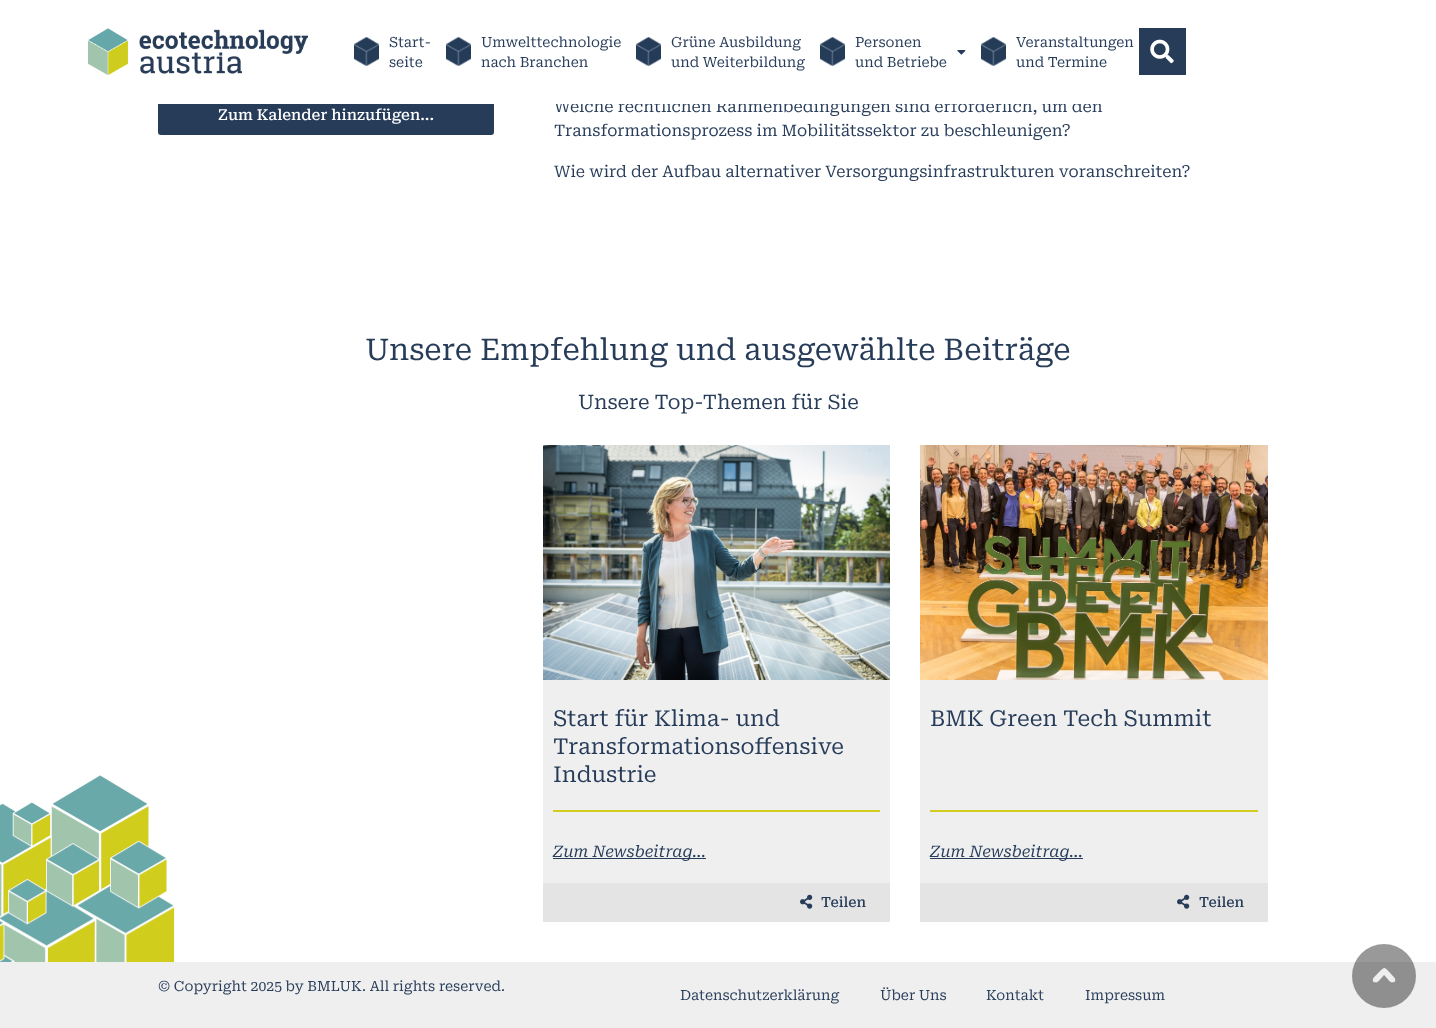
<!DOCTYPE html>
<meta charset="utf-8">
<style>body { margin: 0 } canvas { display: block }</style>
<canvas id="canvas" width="1436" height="1028"></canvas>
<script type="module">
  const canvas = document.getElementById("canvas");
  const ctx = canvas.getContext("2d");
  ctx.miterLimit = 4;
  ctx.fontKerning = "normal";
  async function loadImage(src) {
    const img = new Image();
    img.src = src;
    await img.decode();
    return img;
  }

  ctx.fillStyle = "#ffffff";
  ctx.fillRect(0, 0, 1436, 1028);
  ctx.drawImage(await loadImage("img1.png"), 0, 775, 175, 187);
  ctx.fillStyle = "#f9f9fa";
  ctx.fillRect(158, 132, 336, 3);
  ctx.fillStyle = "#273c59";
  ctx.beginPath();
  ctx.roundRect(158, 96, 336, 39, 3);
  ctx.fill();
  ctx.font = "16px Roboto Serif";
  ctx.fillText("Welche rechtlichen Rahmenbedingungen sind erforderlich, um den", 554, 112);
  ctx.fillStyle = "#ffffff";
  ctx.fillRect(158, 96, 943, 8);
  ctx.drawImage(await loadImage("img2.png"), 88, 28, 220, 47);
  ctx.drawImage(await loadImage("img3.png"), 354, 37, 25, 29);
  ctx.font = "14px Roboto Serif";
  ctx.fillStyle = "#273c59";
  ctx.fillText("Start-", 389, 47);
  ctx.fillText("seite", 389, 67);
  ctx.drawImage(await loadImage("img3.png"), 446, 37, 25, 29);
  ctx.fillText("Umwelttechnologie", 481, 47);
  ctx.fillText("nach Branchen", 481, 67);
  ctx.drawImage(await loadImage("img3.png"), 636, 37, 25, 29);
  ctx.fillText("Grüne Ausbildung", 671, 47);
  ctx.fillText("und Weiterbildung", 671, 67);
  ctx.drawImage(await loadImage("img3.png"), 820, 37, 25, 29);
  ctx.fillText("Personen", 855, 47);
  ctx.drawImage(await loadImage("img4.png"), 957, 50, 9, 5);
  ctx.fillText("und Betriebe", 855, 67);
  ctx.drawImage(await loadImage("img3.png"), 981, 37, 25, 29);
  ctx.fillText("Veranstaltungen", 1016, 47);
  ctx.fillText("und Termine", 1016, 67);
  ctx.fillRect(1139, 28, 47, 47);
  ctx.drawImage(await loadImage("img5.png"), 1150, 39, 24, 25);
  ctx.font = "500 15px Roboto Serif";
  ctx.fillStyle = "#ffffff";
  ctx.fillText("Zum Kalender hinzufügen...", 218, 120);
  ctx.font = "16px Roboto Serif";
  ctx.fillStyle = "#273c59";
  ctx.fillText("Transformationsprozess im Mobilitätssektor zu beschleunigen?", 554, 136);
  ctx.fillText("Wie wird der Aufbau alternativer Versorgungsinfrastrukturen voranschreiten?", 554, 177);
  ctx.font = "30px Roboto Serif";
  ctx.fillText("Unsere Empfehlung und ausgewählte Beiträge", 365, 360);
  ctx.font = "20px Roboto Serif";
  ctx.fillText("Unsere Top-Themen für Sie", 578, 409);
  ctx.fillStyle = "#efefef";
  ctx.fillRect(543, 680, 347, 203);
  ctx.drawImage(await loadImage("img6.png"), 543, 445, 347, 235);
  ctx.font = "22px Roboto Serif";
  ctx.fillStyle = "#273c59";
  ctx.fillText("Start für Klima- und", 553, 726);
  ctx.fillText("Transformationsoffensive", 553, 754);
  ctx.fillText("Industrie", 553, 782);
  ctx.fillStyle = "#d0cd1d";
  ctx.fillRect(553, 810, 327, 2);
  ctx.fillStyle = "#273c59";
  ctx.fillRect(553, 858, 153, 1);
  ctx.font = "italic 16px Roboto Serif";
  ctx.fillText("Zum Newsbeitrag...", 553, 857);
  ctx.fillStyle = "#e4e4e4";
  ctx.fillRect(543, 883, 347, 39);
  ctx.drawImage(await loadImage("img7.png"), 800, 894, 13, 15);
  ctx.font = "500 14px Roboto Serif";
  ctx.fillStyle = "#273c59";
  ctx.fillText("Teilen", 821, 907);
  ctx.fillStyle = "#efefef";
  ctx.fillRect(920, 680, 348, 203);
  ctx.drawImage(await loadImage("img8.png"), 920, 445, 348, 235);
  ctx.font = "22px Roboto Serif";
  ctx.fillStyle = "#273c59";
  ctx.fillText("BMK Green Tech Summit", 930, 726);
  ctx.fillStyle = "#d0cd1d";
  ctx.fillRect(930, 810, 328, 2);
  ctx.fillStyle = "#273c59";
  ctx.fillRect(930, 858, 153, 1);
  ctx.font = "italic 16px Roboto Serif";
  ctx.fillText("Zum Newsbeitrag...", 930, 857);
  ctx.fillStyle = "#e4e4e4";
  ctx.fillRect(920, 883, 348, 39);
  ctx.drawImage(await loadImage("img7.png"), 1177, 894, 13, 15);
  ctx.font = "500 14px Roboto Serif";
  ctx.fillStyle = "#273c59";
  ctx.fillText("Teilen", 1199, 907);
  ctx.fillStyle = "#efefef";
  ctx.fillRect(0, 962, 1436, 66);
  ctx.font = "14px Roboto Serif";
  ctx.fillStyle = "#273c59";
  ctx.fillText("© Copyright 2025 by BMLUK. All rights reserved.", 158, 991);
  ctx.fillText("Datenschutzerklärung", 680, 1000);
  ctx.fillText("Über Uns", 880, 1000);
  ctx.fillText("Kontakt", 986, 1000);
  ctx.fillText("Impressum", 1085, 1000);
  ctx.drawImage(await loadImage("img9.png"), 1352, 944, 64, 64);
</script>
